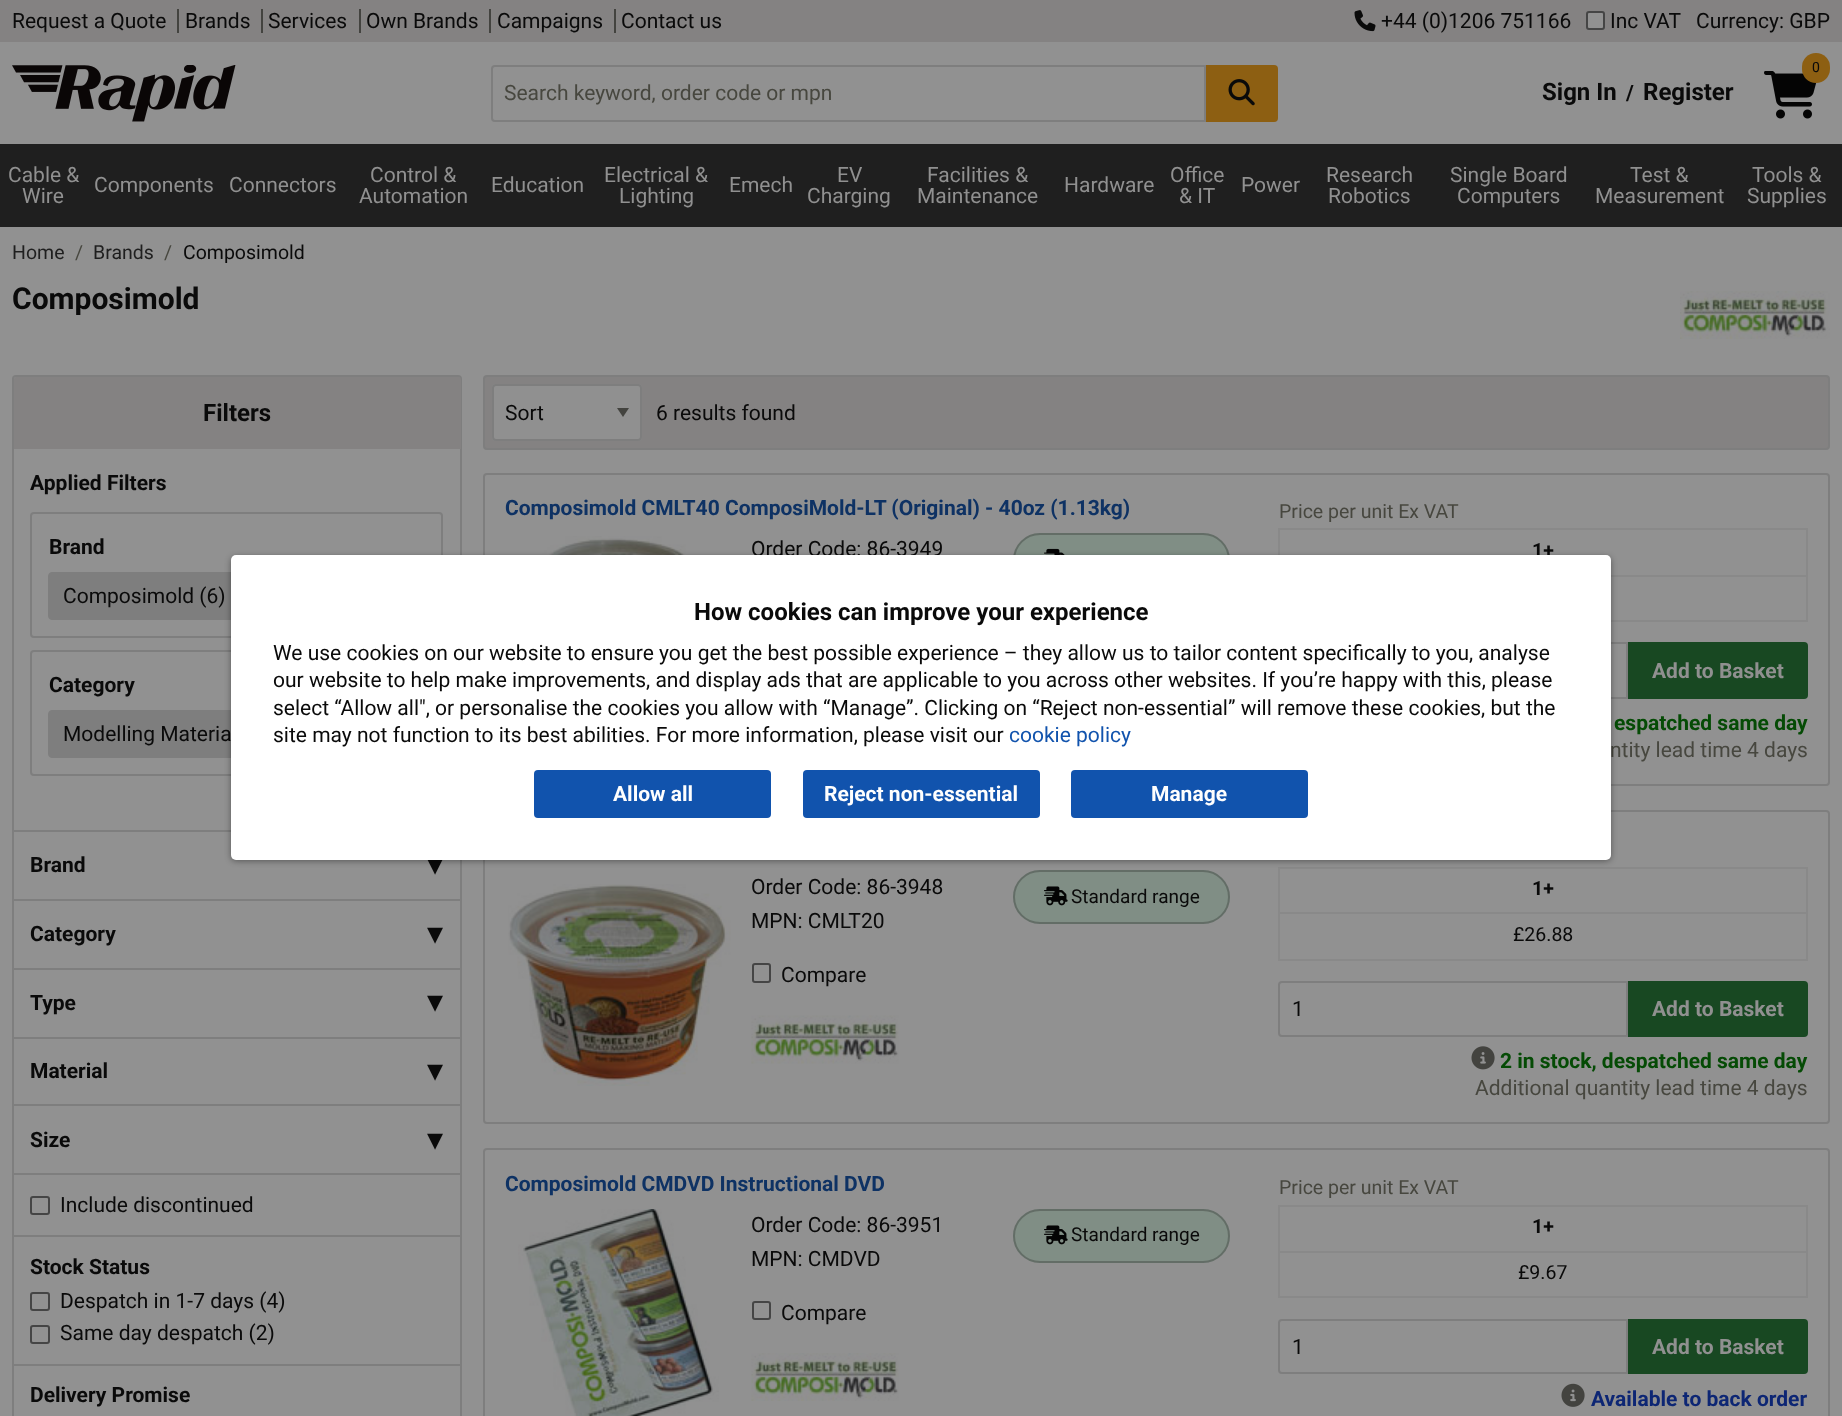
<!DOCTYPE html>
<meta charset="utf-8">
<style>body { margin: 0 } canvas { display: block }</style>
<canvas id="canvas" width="1842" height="1416"></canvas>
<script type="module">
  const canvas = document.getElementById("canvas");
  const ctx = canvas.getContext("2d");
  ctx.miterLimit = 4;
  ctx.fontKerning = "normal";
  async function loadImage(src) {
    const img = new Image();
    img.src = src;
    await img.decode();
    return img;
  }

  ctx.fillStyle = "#919191";
  ctx.fillRect(0, 0, 1842, 1416);
  ctx.fillStyle = "#848282";
  ctx.fillRect(0, 0, 1842, 42);
  ctx.font = "21px Roboto";
  ctx.fillStyle = "#0a0a0a";
  ctx.fillText("Request a Quote", 12, 28);
  ctx.fillStyle = "#43433f";
  ctx.fillRect(177, 9, 2, 24);
  ctx.fillStyle = "#0a0a0a";
  ctx.fillText("Brands", 185, 28);
  ctx.fillStyle = "#43433f";
  ctx.fillRect(261, 9, 2, 24);
  ctx.fillStyle = "#0a0a0a";
  ctx.fillText("Services", 268, 28);
  ctx.fillStyle = "#43433f";
  ctx.fillRect(359, 9, 2, 24);
  ctx.fillStyle = "#0a0a0a";
  ctx.fillText("Own Brands", 366, 28);
  ctx.fillStyle = "#43433f";
  ctx.fillRect(489, 9, 2, 24);
  ctx.fillStyle = "#0a0a0a";
  ctx.fillText("Campaigns", 497, 28);
  ctx.fillStyle = "#43433f";
  ctx.fillRect(614, 9, 2, 24);
  ctx.fillStyle = "#0a0a0a";
  ctx.fillText("Contact us", 621, 28);
  ctx.drawImage(await loadImage("img1.png"), 1354, 10, 22, 22);
  ctx.fillText("+44 (0)1206 751166", 1381, 28);
  ctx.fillStyle = "#919191";
  ctx.beginPath();
  ctx.roundRect(1587, 12, 17, 17, 2);
  ctx.fill();
  ctx.strokeStyle = "#454545";
  ctx.lineWidth = 2;
  ctx.stroke();
  ctx.fillStyle = "#0a0a0a";
  ctx.fillText("Inc VAT", 1610, 28);
  ctx.fillText("Currency: GBP", 1696, 28);
  ctx.drawImage(await loadImage("img2.png"), 12, 65, 224, 57);
  ctx.beginPath();
  ctx.roundRect(492, 66, 713, 55, [3, 0, 0, 3]);
  ctx.strokeStyle = "#7e7e7e";
  ctx.stroke();
  ctx.fillStyle = "#47473f";
  ctx.fillText("Search keyword, order code or mpn", 504, 100);
  ctx.fillStyle = "#8d5f12";
  ctx.beginPath();
  ctx.roundRect(1206, 65, 72, 57, [0, 4, 4, 0]);
  ctx.fill();
  ctx.drawImage(await loadImage("img3.png"), 1228, 79, 27, 27);
  ctx.drawImage(await loadImage("img4.png"), 1764, 71, 53, 48);
  ctx.beginPath();
  ctx.roundRect(1802, 53, 28, 30, 14);
  ctx.fill();
  ctx.font = "14px Roboto";
  ctx.fillStyle = "#0a0a0a";
  ctx.fillText("0", 1812, 72);
  ctx.font = "bold 24px Roboto";
  ctx.fillText("Sign In", 1542, 100);
  ctx.font = "bold 21px Roboto";
  ctx.fillText("/", 1626, 100);
  ctx.font = "bold 24px Roboto";
  ctx.fillText("Register", 1643, 100);
  ctx.fillStyle = "#1f1f1f";
  ctx.fillRect(0, 144, 1842, 83);
  ctx.font = "21px Roboto";
  ctx.fillStyle = "#909090";
  ctx.fillText("Cable &", 8, 182);
  ctx.fillText("Wire", 22, 203);
  ctx.fillText("Components", 94, 192);
  ctx.fillText("Connectors", 229, 192);
  ctx.fillText("Control &", 370, 182);
  ctx.fillText("Automation", 359, 203);
  ctx.fillText("Education", 491, 192);
  ctx.fillText("Electrical &", 604, 182);
  ctx.fillText("Lighting", 619, 203);
  ctx.fillText("Emech", 729, 192);
  ctx.fillText("EV", 837, 182);
  ctx.fillText("Charging", 807, 203);
  ctx.fillText("Facilities &", 927, 182);
  ctx.fillText("Maintenance", 917, 203);
  ctx.fillText("Hardware", 1064, 192);
  ctx.fillText("Office", 1170, 182);
  ctx.fillText("& IT", 1179, 203);
  ctx.fillText("Power", 1241, 192);
  ctx.fillText("Research", 1326, 182);
  ctx.fillText("Robotics", 1328, 203);
  ctx.fillText("Single Board", 1450, 182);
  ctx.fillText("Computers", 1457, 203);
  ctx.fillText("Test &", 1630, 182);
  ctx.fillText("Measurement", 1595, 203);
  ctx.fillText("Tools &", 1752, 182);
  ctx.fillText("Supplies", 1747, 203);
  ctx.font = "19.5px Roboto";
  ctx.fillStyle = "#1f1f1f";
  ctx.fillText("Home", 12, 259);
  ctx.fillStyle = "#47473f";
  ctx.fillText("/", 75, 259);
  ctx.fillStyle = "#1f1f1f";
  ctx.fillText("Brands", 93, 259);
  ctx.fillStyle = "#47473f";
  ctx.fillText("/", 164, 259);
  ctx.fillStyle = "#0a0a0a";
  ctx.fillText("Composimold", 183, 259);
  ctx.font = "bold 30px Roboto";
  ctx.fillText("Composimold", 12, 309);
  ctx.drawImage(await loadImage("img5.png"), 1680, 291, 150, 48);
  ctx.beginPath();
  ctx.roundRect(13, 376, 448, 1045, 3);
  ctx.stroke();
  ctx.fillStyle = "#848282";
  ctx.beginPath();
  ctx.roundRect(14, 377, 447, 72, [2, 2, 0, 0]);
  ctx.fill();
  ctx.font = "bold 24px Roboto";
  ctx.fillStyle = "#0a0a0a";
  ctx.fillText("Filters", 203, 421);
  ctx.fillStyle = "#7e7e7e";
  ctx.fillRect(14, 830, 217, 2);
  ctx.font = "bold 21px Roboto";
  ctx.fillStyle = "#0a0a0a";
  ctx.fillText("Applied Filters", 30, 490);
  ctx.beginPath();
  ctx.roundRect(31, 513, 411, 124, 3);
  ctx.stroke();
  ctx.fillText("Brand", 49, 554);
  ctx.fillStyle = "#7e7e7e";
  ctx.beginPath();
  ctx.moveTo(52, 572);
  ctx.lineTo(236, 572);
  ctx.bezierCurveTo(238, 572, 240, 574, 240, 576);
  ctx.lineTo(240, 616);
  ctx.bezierCurveTo(240, 618, 238, 620, 236, 620);
  ctx.lineTo(52, 620);
  ctx.bezierCurveTo(50, 620, 48, 618, 48, 616);
  ctx.lineTo(48, 576);
  ctx.bezierCurveTo(48, 574, 50, 572, 52, 572);
  ctx.closePath();
  ctx.fill();
  ctx.font = "21px Roboto";
  ctx.fillStyle = "#0a0a0a";
  ctx.fillText("Composimold (6)", 63, 603);
  ctx.beginPath();
  ctx.roundRect(31, 651, 411, 124, 3);
  ctx.stroke();
  ctx.font = "bold 21px Roboto";
  ctx.fillText("Category", 49, 692);
  ctx.fillStyle = "#7e7e7e";
  ctx.beginPath();
  ctx.moveTo(52, 710);
  ctx.lineTo(289, 710);
  ctx.bezierCurveTo(291, 710, 293, 712, 293, 714);
  ctx.lineTo(293, 754);
  ctx.bezierCurveTo(293, 756, 291, 758, 289, 758);
  ctx.lineTo(52, 758);
  ctx.bezierCurveTo(50, 758, 48, 756, 48, 754);
  ctx.lineTo(48, 714);
  ctx.bezierCurveTo(48, 712, 50, 710, 52, 710);
  ctx.closePath();
  ctx.fill();
  ctx.font = "21px Roboto";
  ctx.fillStyle = "#0a0a0a";
  ctx.fillText("Modelling Materia", 63, 741);
  ctx.fillStyle = "#7e7e7e";
  ctx.fillRect(14, 899, 447, 2);
  ctx.font = "bold 21px Roboto";
  ctx.fillStyle = "#0a0a0a";
  ctx.fillText("Brand", 30, 872);
  ctx.font = "32px DejaVu Sans";
  ctx.fillText("▾", 427, 875);
  ctx.fillStyle = "#7e7e7e";
  ctx.fillRect(14, 968, 447, 2);
  ctx.font = "bold 21px Roboto";
  ctx.fillStyle = "#0a0a0a";
  ctx.fillText("Category", 30, 941);
  ctx.font = "32px DejaVu Sans";
  ctx.fillText("▾", 427, 944);
  ctx.fillStyle = "#7e7e7e";
  ctx.fillRect(14, 1037, 447, 2);
  ctx.font = "bold 21px Roboto";
  ctx.fillStyle = "#0a0a0a";
  ctx.fillText("Type", 30, 1010);
  ctx.font = "32px DejaVu Sans";
  ctx.fillText("▾", 427, 1012);
  ctx.fillStyle = "#7e7e7e";
  ctx.fillRect(14, 1104, 447, 2);
  ctx.font = "bold 21px Roboto";
  ctx.fillStyle = "#0a0a0a";
  ctx.fillText("Material", 30, 1078);
  ctx.font = "32px DejaVu Sans";
  ctx.fillText("▾", 427, 1081);
  ctx.fillStyle = "#7e7e7e";
  ctx.fillRect(14, 1173, 447, 2);
  ctx.font = "bold 21px Roboto";
  ctx.fillStyle = "#0a0a0a";
  ctx.fillText("Size", 30, 1147);
  ctx.font = "32px DejaVu Sans";
  ctx.fillText("▾", 427, 1150);
  ctx.fillStyle = "#7e7e7e";
  ctx.fillRect(14, 1235, 447, 2);
  ctx.beginPath();
  ctx.roundRect(31, 1197, 18, 17, 2);
  ctx.strokeStyle = "#454545";
  ctx.stroke();
  ctx.font = "21px Roboto";
  ctx.fillStyle = "#0a0a0a";
  ctx.fillText("Include discontinued", 60, 1212);
  ctx.fillStyle = "#7e7e7e";
  ctx.fillRect(14, 1364, 447, 2);
  ctx.font = "bold 21px Roboto";
  ctx.fillStyle = "#0a0a0a";
  ctx.fillText("Stock Status", 30, 1274);
  ctx.beginPath();
  ctx.roundRect(31, 1293, 18, 17, 2);
  ctx.stroke();
  ctx.font = "21px Roboto";
  ctx.fillText("Despatch in 1-7 days (4)", 60, 1308);
  ctx.beginPath();
  ctx.roundRect(31, 1326, 18, 17, 2);
  ctx.stroke();
  ctx.fillText("Same day despatch (2)", 60, 1340);
  ctx.font = "bold 21px Roboto";
  ctx.fillText("Delivery Promise", 30, 1402);
  ctx.fillStyle = "#848282";
  ctx.beginPath();
  ctx.roundRect(484, 376, 1345, 73, 3);
  ctx.fill();
  ctx.strokeStyle = "#7e7e7e";
  ctx.stroke();
  ctx.fillStyle = "#909090";
  ctx.beginPath();
  ctx.roundRect(492, 384, 150, 57, 4);
  ctx.fill();
  ctx.fillStyle = "#43433f";
  ctx.beginPath();
  ctx.moveTo(617, 408);
  ctx.lineTo(629, 408);
  ctx.lineTo(623, 417);
  ctx.closePath();
  ctx.fill();
  ctx.beginPath();
  ctx.roundRect(493, 385, 148, 55, 3);
  ctx.stroke();
  ctx.font = "21px Roboto";
  ctx.fillStyle = "#0a0a0a";
  ctx.fillText("Sort", 505, 420);
  ctx.fillText("6 results found", 656, 420);
  ctx.beginPath();
  ctx.roundRect(484, 474, 1345, 311, 3);
  ctx.stroke();
  ctx.font = "bold 21px Roboto";
  ctx.fillStyle = "#0e3264";
  ctx.fillText("Composimold CMLT40 ComposiMold-LT (Original) - 40oz (1.13kg)", 505, 515);
  ctx.drawImage(await loadImage("img6.png"), 542, 536, 156, 19);
  ctx.font = "21px Roboto";
  ctx.fillStyle = "#0a0a0a";
  ctx.fillText("Order Code: 86-3949", 751, 556);
  ctx.fillStyle = "#808e85";
  ctx.beginPath();
  ctx.roundRect(1013, 533, 217, 54, 27);
  ctx.fill();
  ctx.beginPath();
  ctx.roundRect(1014, 534, 215, 52, 26);
  ctx.strokeStyle = "rgba(10, 10, 10, 0.25)";
  ctx.stroke();
  ctx.drawImage(await loadImage("img7.png"), 1044, 548, 21, 7);
  ctx.font = "19.5px Roboto";
  ctx.fillStyle = "#47473f";
  ctx.fillText("Price per unit Ex VAT", 1279, 518);
  ctx.fillStyle = "#898989";
  ctx.fillRect(1278, 528, 530, 2);
  ctx.fillRect(1806, 528, 2, 93);
  ctx.fillRect(1611, 620, 197, 2);
  ctx.fillRect(1278, 528, 2, 27);
  ctx.fillRect(1611, 575, 197, 2);
  ctx.font = "bold 19.5px Roboto";
  ctx.fillStyle = "#0a0a0a";
  ctx.fillText("1+", 1532, 557);
  ctx.strokeStyle = "#7e7e7e";
  ctx.strokeRect(1279, 643, 348, 55);
  ctx.fillStyle = "#184822";
  ctx.beginPath();
  ctx.roundRect(1628, 642, 180, 57, [0, 4, 4, 0]);
  ctx.fill();
  ctx.font = "bold 21px Roboto";
  ctx.fillStyle = "#909090";
  ctx.fillText("Add to Basket", 1652, 678);
  ctx.fillStyle = "#054b05";
  ctx.fillText("espatched same day", 1614, 730);
  ctx.font = "21px Roboto";
  ctx.fillStyle = "#47473f";
  ctx.fillText("ntity lead time 4 days", 1610, 757);
  ctx.beginPath();
  ctx.roundRect(484, 811, 1345, 312, 3);
  ctx.stroke();
  ctx.drawImage(await loadImage("img8.png"), 508, 884, 223, 202);
  ctx.fillStyle = "#0a0a0a";
  ctx.fillText("Order Code: 86-3948", 751, 894);
  ctx.fillText("MPN: CMLT20", 751, 928);
  ctx.beginPath();
  ctx.roundRect(753, 964, 17, 18, 2);
  ctx.strokeStyle = "#454545";
  ctx.stroke();
  ctx.fillText("Compare", 781, 982);
  ctx.drawImage(await loadImage("img9.png"), 751, 1015, 148, 49);
  ctx.fillStyle = "#808e85";
  ctx.beginPath();
  ctx.roundRect(1013, 870, 217, 54, 27);
  ctx.fill();
  ctx.beginPath();
  ctx.roundRect(1014, 871, 215, 52, 26);
  ctx.strokeStyle = "rgba(10, 10, 10, 0.25)";
  ctx.stroke();
  ctx.drawImage(await loadImage("img10.png"), 1044, 886, 24, 20);
  ctx.font = "19px Roboto";
  ctx.fillStyle = "#0a0a0a";
  ctx.fillText("Standard range", 1071, 903);
  ctx.fillStyle = "#898989";
  ctx.fillRect(1278, 867, 530, 2);
  ctx.fillRect(1806, 867, 2, 93);
  ctx.fillRect(1278, 959, 530, 2);
  ctx.fillRect(1278, 867, 2, 93);
  ctx.fillRect(1278, 912, 530, 2);
  ctx.font = "bold 19.5px Roboto";
  ctx.fillStyle = "#0a0a0a";
  ctx.fillText("1+", 1532, 895);
  ctx.font = "19.5px Roboto";
  ctx.fillText("£26.88", 1513, 941);
  ctx.beginPath();
  ctx.roundRect(1279, 982, 348, 54, [3, 0, 0, 3]);
  ctx.strokeStyle = "#7e7e7e";
  ctx.stroke();
  ctx.font = "21px Roboto";
  ctx.fillText("1", 1292, 1016);
  ctx.fillStyle = "#184822";
  ctx.beginPath();
  ctx.roundRect(1628, 981, 180, 56, [0, 4, 4, 0]);
  ctx.fill();
  ctx.font = "bold 21px Roboto";
  ctx.fillStyle = "#909090";
  ctx.fillText("Add to Basket", 1652, 1016);
  ctx.drawImage(await loadImage("img11.png"), 1471, 1046, 24, 24);
  ctx.fillStyle = "#054b05";
  ctx.fillText("2 in stock, despatched same day", 1500, 1068);
  ctx.font = "21px Roboto";
  ctx.fillStyle = "#47473f";
  ctx.fillText("Additional quantity lead time 4 days", 1475, 1095);
  ctx.beginPath();
  ctx.roundRect(484, 1149, 1345, 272, 3);
  ctx.stroke();
  ctx.font = "bold 21px Roboto";
  ctx.fillStyle = "#0e3264";
  ctx.fillText("Composimold CMDVD Instructional DVD", 505, 1191);
  ctx.drawImage(await loadImage("img12.png"), 518, 1209, 201, 207);
  ctx.font = "21px Roboto";
  ctx.fillStyle = "#0a0a0a";
  ctx.fillText("Order Code: 86-3951", 751, 1232);
  ctx.fillText("MPN: CMDVD", 751, 1266);
  ctx.beginPath();
  ctx.roundRect(753, 1302, 17, 17, 2);
  ctx.strokeStyle = "#454545";
  ctx.stroke();
  ctx.fillText("Compare", 781, 1320);
  ctx.drawImage(await loadImage("img13.png"), 751, 1353, 148, 48);
  ctx.fillStyle = "#808e85";
  ctx.beginPath();
  ctx.roundRect(1013, 1209, 217, 54, 27);
  ctx.fill();
  ctx.beginPath();
  ctx.roundRect(1014, 1210, 215, 52, 26);
  ctx.strokeStyle = "rgba(10, 10, 10, 0.25)";
  ctx.stroke();
  ctx.drawImage(await loadImage("img10.png"), 1044, 1225, 24, 20);
  ctx.font = "19px Roboto";
  ctx.fillStyle = "#0a0a0a";
  ctx.fillText("Standard range", 1071, 1241);
  ctx.font = "19.5px Roboto";
  ctx.fillStyle = "#47473f";
  ctx.fillText("Price per unit Ex VAT", 1279, 1194);
  ctx.fillStyle = "#898989";
  ctx.fillRect(1278, 1205, 530, 2);
  ctx.fillRect(1806, 1205, 2, 93);
  ctx.fillRect(1278, 1296, 530, 2);
  ctx.fillRect(1278, 1205, 2, 93);
  ctx.fillRect(1278, 1251, 530, 2);
  ctx.font = "bold 19.5px Roboto";
  ctx.fillStyle = "#0a0a0a";
  ctx.fillText("1+", 1532, 1233);
  ctx.font = "19.5px Roboto";
  ctx.fillText("£9.67", 1518, 1279);
  ctx.beginPath();
  ctx.roundRect(1279, 1320, 348, 53, [3, 0, 0, 3]);
  ctx.strokeStyle = "#7e7e7e";
  ctx.stroke();
  ctx.font = "21px Roboto";
  ctx.fillText("1", 1292, 1354);
  ctx.fillStyle = "#184822";
  ctx.beginPath();
  ctx.roundRect(1628, 1319, 180, 55, [0, 4, 4, 0]);
  ctx.fill();
  ctx.font = "bold 21px Roboto";
  ctx.fillStyle = "#909090";
  ctx.fillText("Add to Basket", 1652, 1354);
  ctx.drawImage(await loadImage("img14.png"), 1561, 1383, 24, 24);
  ctx.fillStyle = "#0d2674";
  ctx.fillText("Available to back order", 1591, 1406);
  ctx.fillStyle = "rgba(0, 0, 0, 0.4)";
  ctx.filter = "blur(3px)";
  ctx.beginPath();
  ctx.roundRect(231, 557, 1380, 304, 5);
  ctx.fill();
  ctx.filter = "none";
  ctx.fillStyle = "#ffffff";
  ctx.beginPath();
  ctx.roundRect(231, 555, 1380, 305, 5);
  ctx.fill();
  ctx.font = "bold 24px Roboto";
  ctx.fillStyle = "#0a0a0a";
  ctx.fillText("How cookies can improve your experience", 694, 620);
  ctx.font = "21px Roboto";
  ctx.fillText("We use cookies on our website to ensure you get the best possible experience – they allow us to tailor content specifically to you, analyse", 273, 660);
  ctx.fillText("our website to help make improvements, and display ads that are applicable to you across other websites. If you’re happy with this, please", 273, 687);
  ctx.fillText("select “Allow all\", or personalise the cookies you allow with “Manage”. Clicking on “Reject non-essential” will remove these cookies, but the", 273, 715);
  ctx.fillText("site may not function to its best abilities. For more information, please visit our", 273, 742);
  ctx.fillStyle = "#1153ad";
  ctx.fillText("cookie policy", 1009, 742);
  ctx.beginPath();
  ctx.roundRect(534, 770, 237, 48, 4);
  ctx.fill();
  ctx.font = "bold 21px Roboto";
  ctx.fillStyle = "#fefefe";
  ctx.fillText("Allow all", 613, 801);
  ctx.fillStyle = "#1153ad";
  ctx.beginPath();
  ctx.roundRect(803, 770, 237, 48, 4);
  ctx.fill();
  ctx.fillStyle = "#fefefe";
  ctx.fillText("Reject non-essential", 824, 801);
  ctx.fillStyle = "#1153ad";
  ctx.beginPath();
  ctx.roundRect(1071, 770, 237, 48, 4);
  ctx.fill();
  ctx.fillStyle = "#fefefe";
  ctx.fillText("Manage", 1151, 801);
</script>
